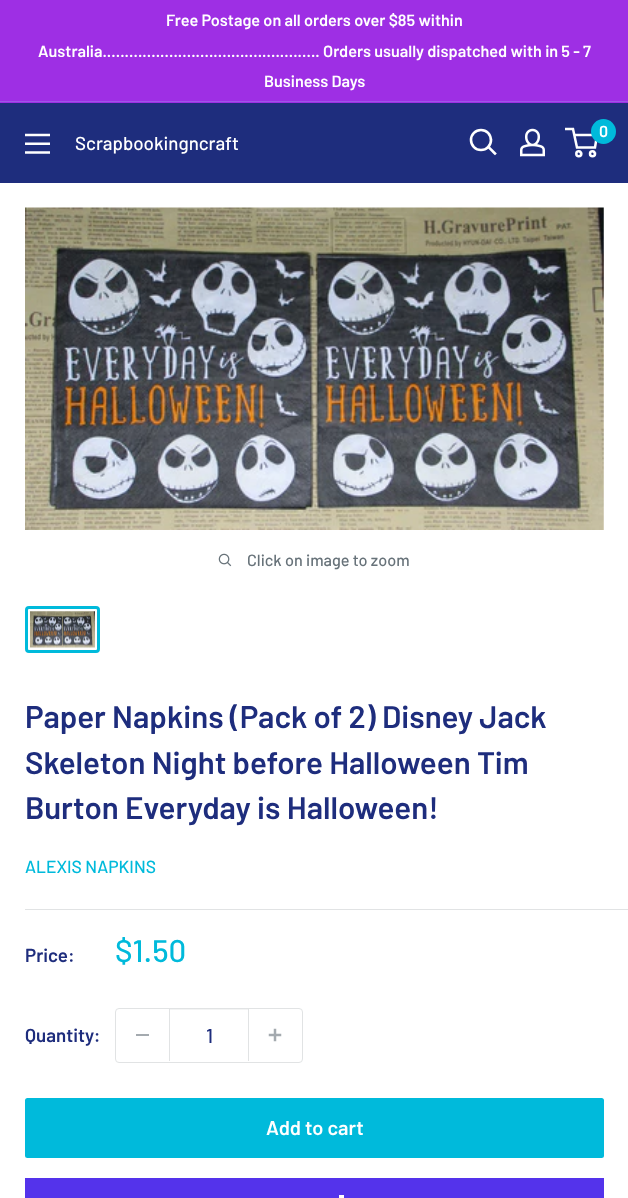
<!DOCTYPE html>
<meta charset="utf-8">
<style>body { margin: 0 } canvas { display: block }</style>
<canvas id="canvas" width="628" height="1198"></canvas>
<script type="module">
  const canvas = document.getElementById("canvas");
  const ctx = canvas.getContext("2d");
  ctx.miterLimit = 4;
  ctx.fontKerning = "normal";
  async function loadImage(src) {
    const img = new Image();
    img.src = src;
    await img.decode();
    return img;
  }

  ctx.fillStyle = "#9e2fe4";
  ctx.fillRect(0, 0, 628, 1198);
  ctx.fillStyle = "#a055e7";
  ctx.fillRect(0, 101, 628, 1);
  ctx.font = "600 16.25px Barlow";
  ctx.fillStyle = "#ffffff";
  ctx.fillText("Free Postage on all orders over $85 within", 166, 26);
  ctx.fillText("Australia................................................. Orders usually dispatched with in 5 - 7", 38, 57);
  ctx.fillText("Business Days", 264, 87);
  ctx.fillStyle = "#1e2d7d";
  ctx.fillRect(0, 103, 628, 80);
  ctx.beginPath();
  ctx.moveTo(495, 153.5);
  ctx.lineTo(488.5, 147);
  ctx.strokeStyle = "#ffffff";
  ctx.lineWidth = 2.6;
  ctx.lineCap = "square";
  ctx.stroke();
  ctx.beginPath();
  ctx.arc(481, 140, 10, 0, Math.PI * 2);
  ctx.stroke();
  ctx.drawImage(await loadImage("img1.png"), 520, 128, 25, 29);
  ctx.beginPath();
  ctx.arc(578.8, 153.8, 2.5, 0, Math.PI * 2);
  ctx.lineWidth = 2.5;
  ctx.stroke();
  ctx.beginPath();
  ctx.arc(592.5, 153.8, 2.5, 0, Math.PI * 2);
  ctx.stroke();
  ctx.beginPath();
  ctx.moveTo(574, 135);
  ctx.lineTo(597, 135);
  ctx.lineTo(595, 147.5);
  ctx.lineTo(577, 147.5);
  ctx.lineTo(573, 129);
  ctx.lineTo(565, 129);
  ctx.lineCap = "butt";
  ctx.stroke();
  ctx.fillStyle = "#00badb";
  ctx.beginPath();
  ctx.arc(603.5, 131.5, 12.5, 0, Math.PI * 2);
  ctx.fill();
  ctx.font = "600 16px Barlow";
  ctx.fillStyle = "#ffffff";
  ctx.fillText("0", 599, 137);
  ctx.drawImage(await loadImage("img2.png"), 25, 133, 25, 21);
  ctx.font = "500 18.75px Barlow";
  ctx.fillText("Scrapbookingncraft", 75, 150);
  ctx.fillRect(0, 183, 628, 510);
  ctx.drawImage(await loadImage("img3.png"), 25, 207, 579, 323);
  ctx.drawImage(await loadImage("img4.png"), 218, 553, 14, 14);
  ctx.font = "500 16.25px Barlow";
  ctx.fillStyle = "#677279";
  ctx.fillText("Click on image to zoom", 247, 566);
  ctx.beginPath();
  ctx.roundRect(26.5, 607.5, 72, 44, 2.5);
  ctx.strokeStyle = "#00badb";
  ctx.lineWidth = 3;
  ctx.stroke();
  ctx.drawImage(await loadImage("img5.png"), 30, 611, 65, 37);
  ctx.fillStyle = "#ffffff";
  ctx.beginPath();
  ctx.moveTo(0, 693);
  ctx.lineTo(0, 694);
  ctx.lineTo(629, 694);
  ctx.lineTo(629, 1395);
  ctx.lineTo(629, 693);
  ctx.closePath();
  ctx.fill();
  ctx.fillRect(0, 694, 628, 504);
  ctx.font = "600 31.25px Barlow";
  ctx.fillStyle = "#1e2d7d";
  ctx.fillText("Paper Napkins (Pack of 2) Disney Jack", 25, 728);
  ctx.fillText("Skeleton Night before Halloween Tim", 25, 774);
  ctx.fillText("Burton Everyday is Halloween!", 25, 819);
  ctx.font = "500 17.5px Barlow";
  ctx.fillStyle = "#00badb";
  ctx.fillText("ALEXIS NAPKINS", 25, 873);
  ctx.fillStyle = "#e1e3e4";
  ctx.fillRect(25, 909, 603, 1);
  ctx.font = "600 18.75px Barlow";
  ctx.fillStyle = "#1e2d7d";
  ctx.fillText("Price:", 25, 962);
  ctx.font = "500 31.25px Barlow";
  ctx.fillStyle = "#00badb";
  ctx.fillText("$1.50", 115, 962);
  ctx.font = "600 18.75px Barlow";
  ctx.fillStyle = "#1e2d7d";
  ctx.fillText("Quantity:", 25, 1042);
  ctx.beginPath();
  ctx.roundRect(115.5, 1008.5, 187, 54, 3.5);
  ctx.strokeStyle = "#e1e3e4";
  ctx.lineWidth = 1;
  ctx.stroke();
  ctx.fillStyle = "#a4aaaf";
  ctx.fillRect(136, 1034, 13, 2);
  ctx.fillStyle = "#f3f4f4";
  ctx.fillRect(170, 1009, 78, 1);
  ctx.fillStyle = "#e1e3e4";
  ctx.fillRect(248, 1009, 1, 52);
  ctx.fillRect(169, 1009, 1, 52);
  ctx.font = "500 20px Barlow";
  ctx.fillStyle = "#1e2d7d";
  ctx.fillText("1", 206, 1043);
  ctx.drawImage(await loadImage("img6.png"), 268, 1028, 14, 14);
  ctx.fillStyle = "#00badb";
  ctx.beginPath();
  ctx.roundRect(25, 1098, 579, 60, 2.5);
  ctx.fill();
  ctx.font = "600 20px Barlow";
  ctx.fillStyle = "#ffffff";
  ctx.fillText("Add to cart", 266, 1135);
  ctx.fillStyle = "#5433eb";
  ctx.fillRect(25, 1178, 579, 20);
  ctx.fillStyle = "#ffffff";
  ctx.fillRect(339, 1195, 5, 3);
</script>
